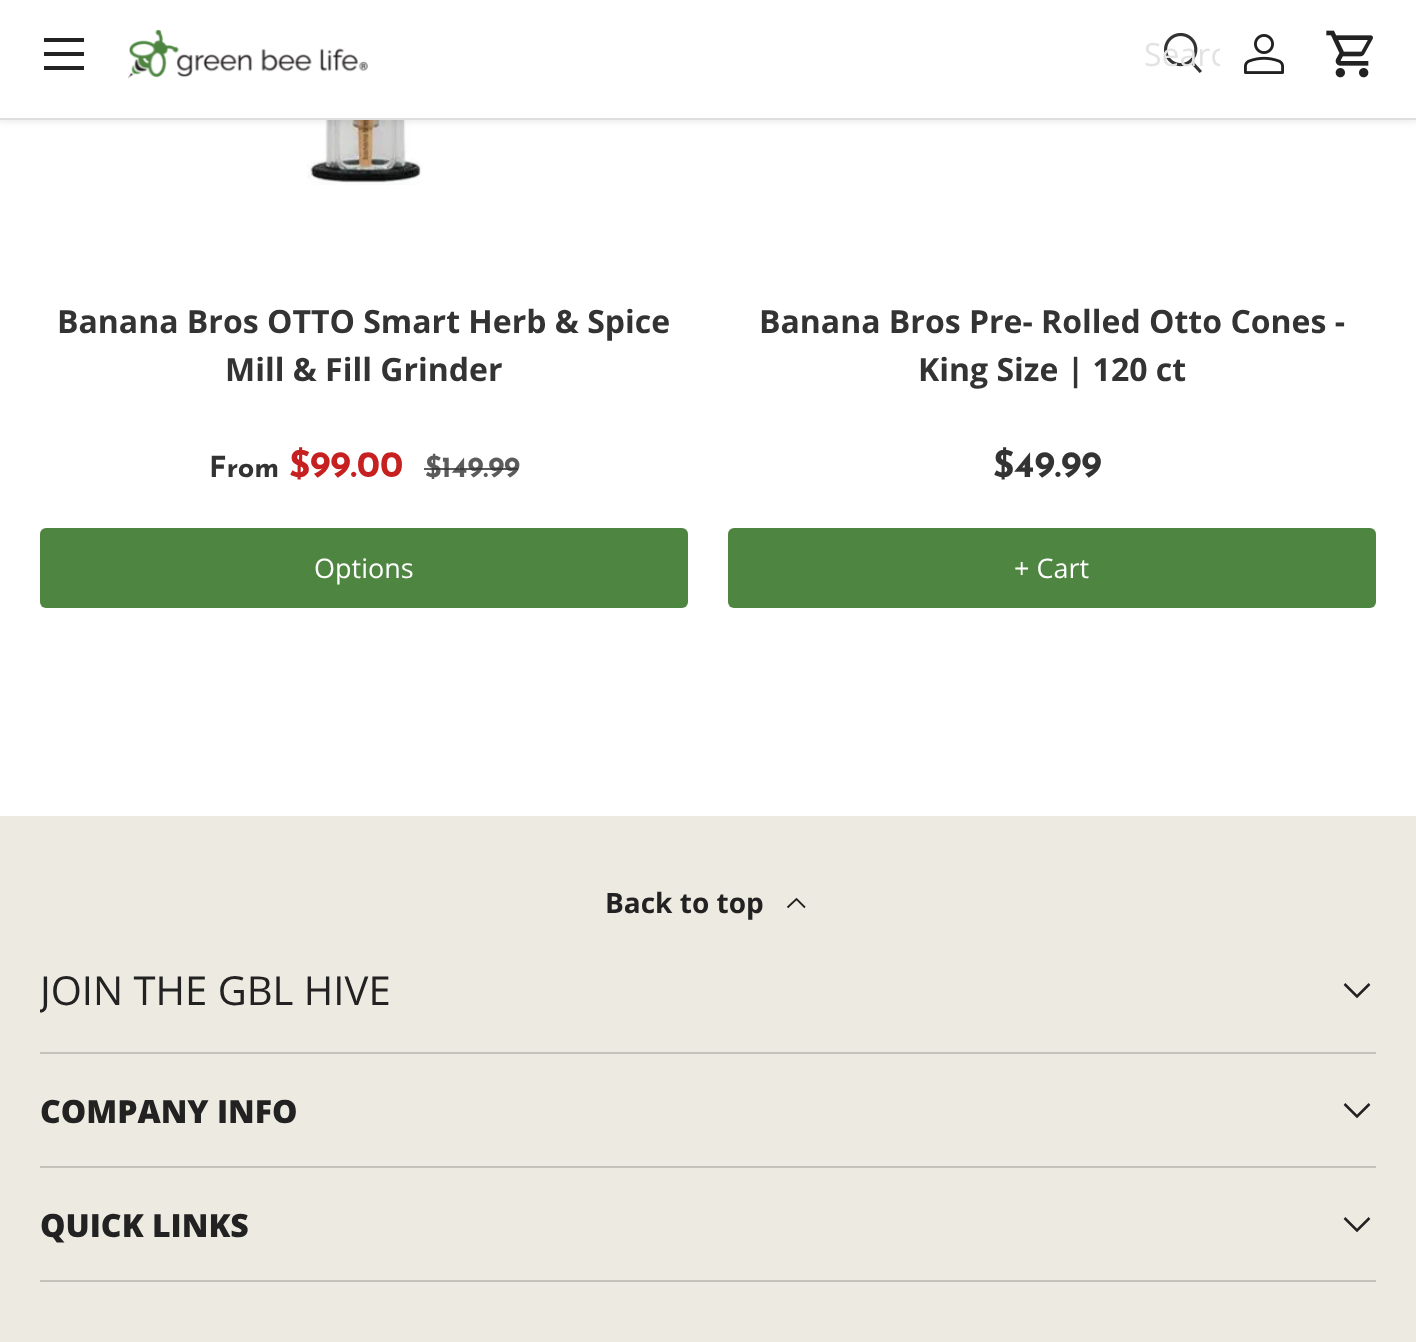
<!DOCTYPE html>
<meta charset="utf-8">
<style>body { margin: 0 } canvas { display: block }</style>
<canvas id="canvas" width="1416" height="1342"></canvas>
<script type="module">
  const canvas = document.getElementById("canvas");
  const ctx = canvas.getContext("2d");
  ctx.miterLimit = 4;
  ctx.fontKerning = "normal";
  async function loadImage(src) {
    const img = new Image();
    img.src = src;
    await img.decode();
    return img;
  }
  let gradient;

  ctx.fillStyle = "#ffffff";
  ctx.fillRect(0, 0, 1416, 1342);
  ctx.drawImage(await loadImage("img5.png"), 306, 120, 117, 65);
  ctx.fillStyle = "rgba(0, 0, 0, 0.08)";
  ctx.filter = "blur(3px)";
  ctx.beginPath();
  ctx.rect(-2, -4, 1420, 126);
  ctx.fill();
  ctx.filter = "none";
  ctx.fillStyle = "#ffffff";
  ctx.fillRect(0, 0, 1416, 118);
  ctx.fillStyle = "#222222";
  ctx.fillRect(44, 38, 40, 4);
  ctx.fillRect(44, 66, 40, 4);
  ctx.fillRect(44, 52, 40, 4);
  ctx.drawImage(await loadImage("img1.png"), 128, 29, 240, 50);
  ctx.drawImage(await loadImage("img2.png"), 1164, 32, 38, 41);
  ctx.save();
  ctx.beginPath();
  ctx.rect(1144, 32, 76, 44);
  ctx.clip();
  ctx.font = "32px Open Sans";
  ctx.fillStyle = "#e3e3e3";
  ctx.fillText("Searc", 1144, 66);
  ctx.restore();
  ctx.drawImage(await loadImage("img3.png"), 1244, 34, 40, 40);
  ctx.drawImage(await loadImage("img4.png"), 1326, 30, 47, 48);
  ctx.fillStyle = "#dedede";
  ctx.fillRect(0, 118, 1416, 2);
  ctx.font = "bold 32px Open Sans";
  ctx.fillStyle = "#333333";
  ctx.fillText("Banana Bros OTTO Smart Herb & Spice", 57, 333);
  ctx.fillText("Mill & Fill Grinder", 225, 381);
  ctx.font = "bold 29px Josefin Sans";
  ctx.fillText("From", 209, 477);
  ctx.font = "bold 37px Josefin Sans";
  ctx.fillStyle = "#c62020";
  ctx.fillText("$99.00", 289, 477);
  ctx.font = "bold 29px Josefin Sans";
  ctx.fillStyle = "#5c5c5c";
  ctx.fillText("$149.99", 425, 477);
  ctx.fillStyle = "rgba(51, 51, 51, 0.8)";
  ctx.fillRect(424, 468, 94, 2);
  gradient = ctx.createLinearGradient(-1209, 337, 641, 799);
  gradient.addColorStop(0.6, "#709f64");
  gradient.addColorStop(0.6, "#4e8540");
  gradient.addColorStop(1, "#4e8540");
  ctx.fillStyle = gradient;
  ctx.beginPath();
  ctx.roundRect(40, 528, 648, 80, 6);
  ctx.fill();
  ctx.font = "27px Open Sans";
  ctx.fillStyle = "#ffffff";
  ctx.fillText("Options", 314, 578);
  ctx.font = "bold 32px Open Sans";
  ctx.fillStyle = "#333333";
  ctx.fillText("Banana Bros Pre- Rolled Otto Cones -", 759, 333);
  ctx.fillText("King Size | 120 ct", 918, 381);
  ctx.font = "bold 37px Josefin Sans";
  ctx.fillText("$49.99", 993, 477);
  gradient = ctx.createLinearGradient(-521, 337, 1329, 799);
  gradient.addColorStop(0.6, "#709f64");
  gradient.addColorStop(0.6, "#4e8540");
  gradient.addColorStop(1, "#4e8540");
  ctx.fillStyle = gradient;
  ctx.beginPath();
  ctx.roundRect(728, 528, 648, 80, 6);
  ctx.fill();
  ctx.font = "27px Open Sans";
  ctx.fillStyle = "#ffffff";
  ctx.fillText("+ Cart", 1014, 578);
  ctx.fillStyle = "#edebe1";
  ctx.fillRect(0, 816, 1416, 526);
  ctx.font = "bold 28px Open Sans";
  ctx.fillStyle = "#222222";
  ctx.fillText("Back to top", 605, 913);
  ctx.beginPath();
  ctx.moveTo(787.5, 907.5);
  ctx.lineTo(796.5, 899);
  ctx.lineTo(805, 907.5);
  ctx.strokeStyle = "#222222";
  ctx.lineWidth = 1.8;
  ctx.stroke();
  ctx.fillStyle = "#c4c3bb";
  ctx.fillRect(40, 1052, 1336, 2);
  ctx.save();
  ctx.beginPath();
  ctx.rect(40, 928, 1336, 124);
  ctx.clip();
  ctx.font = "40px Open Sans";
  ctx.fillStyle = "#222222";
  ctx.fillText("JOIN THE GBL HIVE", 40, 1005);
  ctx.restore();
  ctx.beginPath();
  ctx.moveTo(1369.5, 984);
  ctx.lineTo(1357, 996.5);
  ctx.lineTo(1344.5, 984);
  ctx.lineWidth = 2.5;
  ctx.stroke();
  ctx.fillRect(40, 1166, 1336, 2);
  ctx.font = "800 32px Open Sans";
  ctx.fillStyle = "#222222";
  ctx.fillText("COMPANY INFO", 40, 1123);
  ctx.beginPath();
  ctx.moveTo(1369.5, 1104);
  ctx.lineTo(1357, 1116.5);
  ctx.lineTo(1344.5, 1104);
  ctx.stroke();
  ctx.fillStyle = "#c4c3bb";
  ctx.fillRect(40, 1280, 1336, 2);
  ctx.fillStyle = "#222222";
  ctx.fillText("QUICK LINKS", 40, 1237);
  ctx.beginPath();
  ctx.moveTo(1369.5, 1218);
  ctx.lineTo(1357, 1230.5);
  ctx.lineTo(1344.5, 1218);
  ctx.stroke();
</script>
